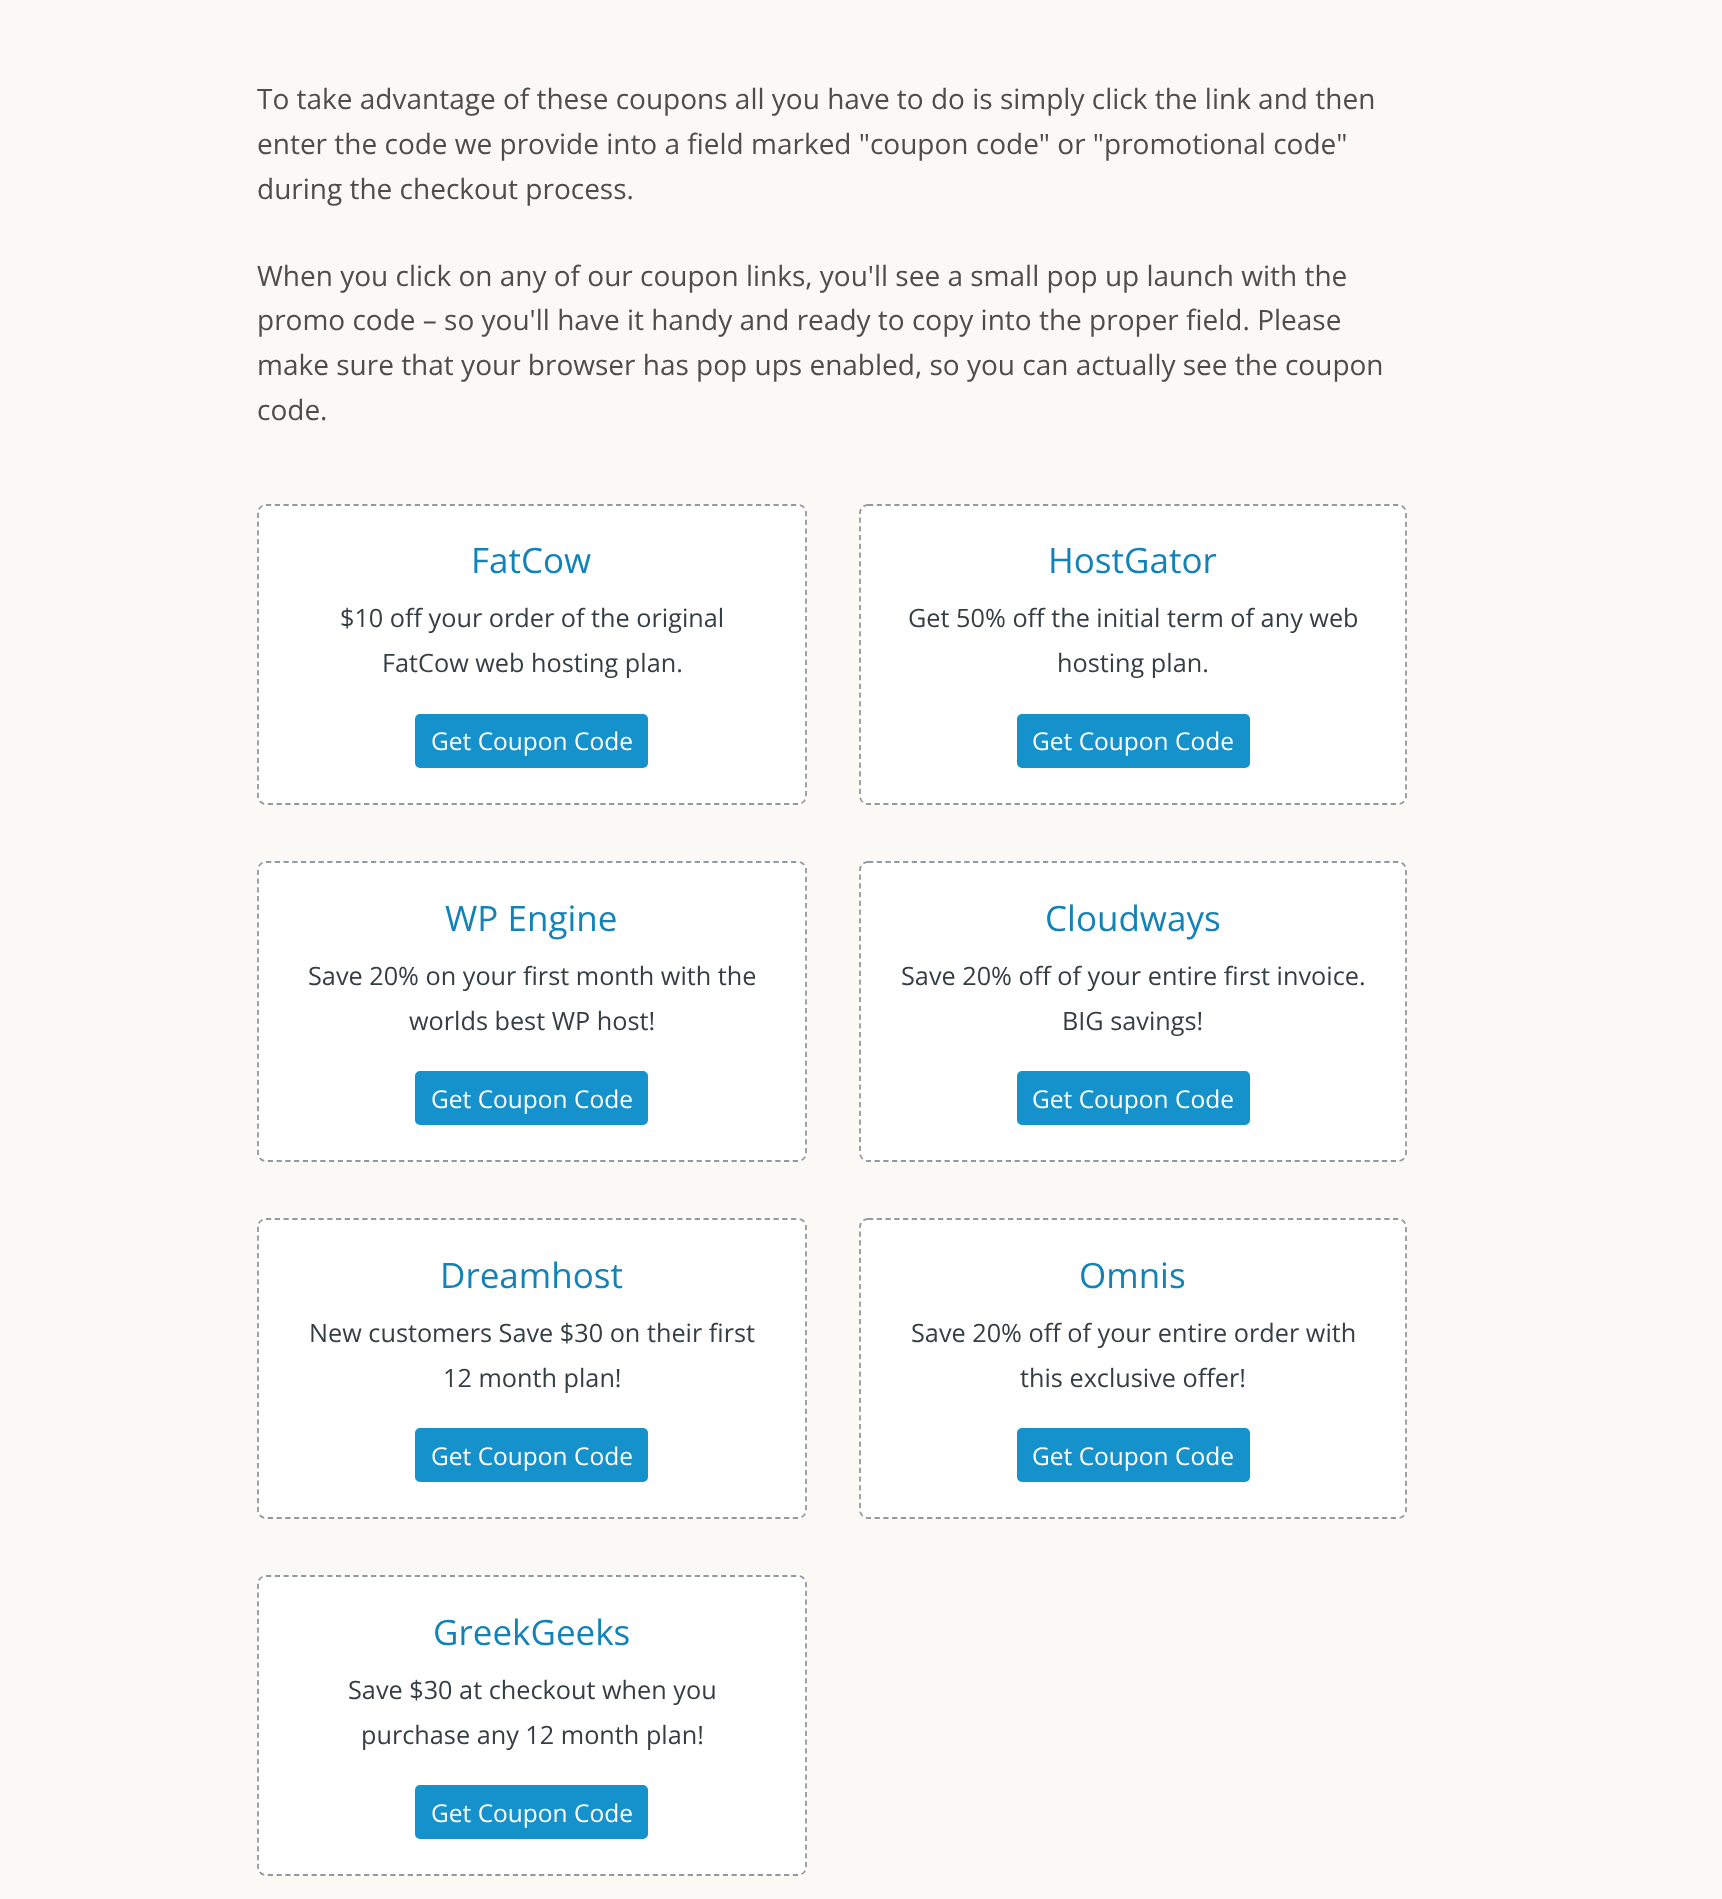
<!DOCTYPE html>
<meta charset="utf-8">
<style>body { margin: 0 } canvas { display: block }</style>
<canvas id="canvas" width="1722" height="1899"></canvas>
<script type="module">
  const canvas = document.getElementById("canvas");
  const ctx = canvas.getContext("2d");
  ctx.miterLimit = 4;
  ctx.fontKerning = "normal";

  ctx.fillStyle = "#fbf9f6";
  ctx.fillRect(0, 0, 1722, 1899);
  ctx.font = "28px Open Sans";
  ctx.fillStyle = "#4e4d4c";
  ctx.fillText("To take advantage of these coupons all you have to do is simply click the link and then", 257, 109);
  ctx.fillText("enter the code we provide into a field marked \"coupon code\" or \"promotional code\"", 257, 154);
  ctx.fillText("during the checkout process.", 257, 199);
  ctx.fillText("When you click on any of our coupon links, you'll see a small pop up launch with the", 257, 286);
  ctx.fillText("promo code – so you'll have it handy and ready to copy into the proper field. Please", 257, 330);
  ctx.fillText("make sure that your browser has pop ups enabled, so you can actually see the coupon", 257, 375);
  ctx.fillText("code.", 257, 420);
  ctx.fillStyle = "#ffffff";
  ctx.beginPath();
  ctx.roundRect(257, 504, 550, 301, 9);
  ctx.fill();
  ctx.beginPath();
  ctx.moveTo(266, 505);
  ctx.lineTo(798, 505);
  ctx.bezierCurveTo(802.5, 505, 806, 508.5, 806, 513);
  ctx.lineTo(806, 796);
  ctx.bezierCurveTo(806, 800.5, 802.5, 804, 798, 804);
  ctx.lineTo(266, 804);
  ctx.bezierCurveTo(261.5, 804, 258, 800.5, 258, 796);
  ctx.lineTo(258, 513);
  ctx.bezierCurveTo(258, 508.5, 261.5, 505, 266, 505);
  ctx.closePath();
  ctx.strokeStyle = "#939a9c";
  ctx.lineWidth = 1.8;
  ctx.setLineDash([5.25, 3.5]);
  ctx.stroke();
  ctx.font = "35px Open Sans";
  ctx.fillStyle = "#1383b7";
  ctx.fillText("FatCow", 471, 573);
  ctx.font = "25.25px Open Sans";
  ctx.fillStyle = "#353e42";
  ctx.fillText("$10 off your order of the original", 340, 627);
  ctx.fillText("FatCow web hosting plan.", 382, 672);
  ctx.fillStyle = "#1592cc";
  ctx.beginPath();
  ctx.roundRect(416, 715, 231, 52, 4);
  ctx.fill();
  ctx.strokeStyle = "#1592cc";
  ctx.lineWidth = 2;
  ctx.setLineDash([]);
  ctx.stroke();
  ctx.font = "24.5px Open Sans";
  ctx.fillStyle = "#ffffff";
  ctx.fillText("Get Coupon Code", 431, 750);
  ctx.beginPath();
  ctx.roundRect(859, 504, 548, 301, 9);
  ctx.fill();
  ctx.beginPath();
  ctx.moveTo(868, 505);
  ctx.lineTo(1398, 505);
  ctx.bezierCurveTo(1402.5, 505, 1406, 508.5, 1406, 513);
  ctx.lineTo(1406, 796);
  ctx.bezierCurveTo(1406, 800.5, 1402.5, 804, 1398, 804);
  ctx.lineTo(868, 804);
  ctx.bezierCurveTo(863.5, 804, 860, 800.5, 860, 796);
  ctx.lineTo(860, 513);
  ctx.bezierCurveTo(860, 508.5, 863.5, 505, 868, 505);
  ctx.closePath();
  ctx.strokeStyle = "#939a9c";
  ctx.lineWidth = 1.8;
  ctx.setLineDash([5.25, 3.5]);
  ctx.stroke();
  ctx.font = "35px Open Sans";
  ctx.fillStyle = "#1383b7";
  ctx.fillText("HostGator", 1048, 573);
  ctx.font = "25.25px Open Sans";
  ctx.fillStyle = "#353e42";
  ctx.fillText("Get 50% off the initial term of any web", 908, 627);
  ctx.fillText("hosting plan.", 1057, 672);
  ctx.fillStyle = "#1592cc";
  ctx.beginPath();
  ctx.roundRect(1018, 715, 231, 52, 4);
  ctx.fill();
  ctx.strokeStyle = "#1592cc";
  ctx.lineWidth = 2;
  ctx.setLineDash([]);
  ctx.stroke();
  ctx.font = "24.5px Open Sans";
  ctx.fillStyle = "#ffffff";
  ctx.fillText("Get Coupon Code", 1032, 750);
  ctx.beginPath();
  ctx.roundRect(257, 861, 550, 301, 9);
  ctx.fill();
  ctx.beginPath();
  ctx.moveTo(266, 862);
  ctx.lineTo(798, 862);
  ctx.bezierCurveTo(802.5, 862, 806, 865.5, 806, 870);
  ctx.lineTo(806, 1153);
  ctx.bezierCurveTo(806, 1157.5, 802.5, 1161, 798, 1161);
  ctx.lineTo(266, 1161);
  ctx.bezierCurveTo(261.5, 1161, 258, 1157.5, 258, 1153);
  ctx.lineTo(258, 870);
  ctx.bezierCurveTo(258, 865.5, 261.5, 862, 266, 862);
  ctx.closePath();
  ctx.strokeStyle = "#939a9c";
  ctx.lineWidth = 1.8;
  ctx.setLineDash([5.25, 3.5]);
  ctx.stroke();
  ctx.font = "35px Open Sans";
  ctx.fillStyle = "#1383b7";
  ctx.fillText("WP Engine", 445, 931);
  ctx.font = "25.25px Open Sans";
  ctx.fillStyle = "#353e42";
  ctx.fillText("Save 20% on your first month with the", 308, 985);
  ctx.fillText("worlds best WP host!", 409, 1030);
  ctx.fillStyle = "#1592cc";
  ctx.beginPath();
  ctx.roundRect(416, 1072, 231, 52, 4);
  ctx.fill();
  ctx.strokeStyle = "#1592cc";
  ctx.lineWidth = 2;
  ctx.setLineDash([]);
  ctx.stroke();
  ctx.font = "24.5px Open Sans";
  ctx.fillStyle = "#ffffff";
  ctx.fillText("Get Coupon Code", 431, 1108);
  ctx.beginPath();
  ctx.roundRect(859, 861, 548, 301, 9);
  ctx.fill();
  ctx.beginPath();
  ctx.moveTo(868, 862);
  ctx.lineTo(1398, 862);
  ctx.bezierCurveTo(1402.5, 862, 1406, 865.5, 1406, 870);
  ctx.lineTo(1406, 1153);
  ctx.bezierCurveTo(1406, 1157.5, 1402.5, 1161, 1398, 1161);
  ctx.lineTo(868, 1161);
  ctx.bezierCurveTo(863.5, 1161, 860, 1157.5, 860, 1153);
  ctx.lineTo(860, 870);
  ctx.bezierCurveTo(860, 865.5, 863.5, 862, 868, 862);
  ctx.closePath();
  ctx.strokeStyle = "#939a9c";
  ctx.lineWidth = 1.8;
  ctx.setLineDash([5.25, 3.5]);
  ctx.stroke();
  ctx.font = "35px Open Sans";
  ctx.fillStyle = "#1383b7";
  ctx.fillText("Cloudways", 1045, 931);
  ctx.font = "25.25px Open Sans";
  ctx.fillStyle = "#353e42";
  ctx.fillText("Save 20% off of your entire first invoice.", 901, 985);
  ctx.fillText("BIG savings!", 1062, 1030);
  ctx.fillStyle = "#1592cc";
  ctx.beginPath();
  ctx.roundRect(1018, 1072, 231, 52, 4);
  ctx.fill();
  ctx.strokeStyle = "#1592cc";
  ctx.lineWidth = 2;
  ctx.setLineDash([]);
  ctx.stroke();
  ctx.font = "24.5px Open Sans";
  ctx.fillStyle = "#ffffff";
  ctx.fillText("Get Coupon Code", 1032, 1108);
  ctx.beginPath();
  ctx.roundRect(257, 1218, 550, 301, 9);
  ctx.fill();
  ctx.beginPath();
  ctx.moveTo(266, 1219);
  ctx.lineTo(798, 1219);
  ctx.bezierCurveTo(802.5, 1219, 806, 1222.5, 806, 1227);
  ctx.lineTo(806, 1510);
  ctx.bezierCurveTo(806, 1514.5, 802.5, 1518, 798, 1518);
  ctx.lineTo(266, 1518);
  ctx.bezierCurveTo(261.5, 1518, 258, 1514.5, 258, 1510);
  ctx.lineTo(258, 1227);
  ctx.bezierCurveTo(258, 1222.5, 261.5, 1219, 266, 1219);
  ctx.closePath();
  ctx.strokeStyle = "#939a9c";
  ctx.lineWidth = 1.8;
  ctx.setLineDash([5.25, 3.5]);
  ctx.stroke();
  ctx.font = "35px Open Sans";
  ctx.fillStyle = "#1383b7";
  ctx.fillText("Dreamhost", 440, 1288);
  ctx.font = "25.25px Open Sans";
  ctx.fillStyle = "#353e42";
  ctx.fillText("New customers Save $30 on their first", 309, 1342);
  ctx.fillText("12 month plan!", 443, 1387);
  ctx.fillStyle = "#1592cc";
  ctx.beginPath();
  ctx.roundRect(416, 1429, 231, 52, 4);
  ctx.fill();
  ctx.strokeStyle = "#1592cc";
  ctx.lineWidth = 2;
  ctx.setLineDash([]);
  ctx.stroke();
  ctx.font = "24.5px Open Sans";
  ctx.fillStyle = "#ffffff";
  ctx.fillText("Get Coupon Code", 431, 1465);
  ctx.beginPath();
  ctx.roundRect(859, 1218, 548, 301, 9);
  ctx.fill();
  ctx.beginPath();
  ctx.moveTo(868, 1219);
  ctx.lineTo(1398, 1219);
  ctx.bezierCurveTo(1402.5, 1219, 1406, 1222.5, 1406, 1227);
  ctx.lineTo(1406, 1510);
  ctx.bezierCurveTo(1406, 1514.5, 1402.5, 1518, 1398, 1518);
  ctx.lineTo(868, 1518);
  ctx.bezierCurveTo(863.5, 1518, 860, 1514.5, 860, 1510);
  ctx.lineTo(860, 1227);
  ctx.bezierCurveTo(860, 1222.5, 863.5, 1219, 868, 1219);
  ctx.closePath();
  ctx.strokeStyle = "#939a9c";
  ctx.lineWidth = 1.8;
  ctx.setLineDash([5.25, 3.5]);
  ctx.stroke();
  ctx.font = "35px Open Sans";
  ctx.fillStyle = "#1383b7";
  ctx.fillText("Omnis", 1079, 1288);
  ctx.font = "25.25px Open Sans";
  ctx.fillStyle = "#353e42";
  ctx.fillText("Save 20% off of your entire order with", 911, 1342);
  ctx.fillText("this exclusive offer!", 1020, 1387);
  ctx.fillStyle = "#1592cc";
  ctx.beginPath();
  ctx.roundRect(1018, 1429, 231, 52, 4);
  ctx.fill();
  ctx.strokeStyle = "#1592cc";
  ctx.lineWidth = 2;
  ctx.setLineDash([]);
  ctx.stroke();
  ctx.font = "24.5px Open Sans";
  ctx.fillStyle = "#ffffff";
  ctx.fillText("Get Coupon Code", 1032, 1465);
  ctx.beginPath();
  ctx.roundRect(257, 1575, 550, 301, 9);
  ctx.fill();
  ctx.beginPath();
  ctx.moveTo(266, 1576);
  ctx.lineTo(798, 1576);
  ctx.bezierCurveTo(802.5, 1576, 806, 1579.5, 806, 1584);
  ctx.lineTo(806, 1867);
  ctx.bezierCurveTo(806, 1871.5, 802.5, 1875, 798, 1875);
  ctx.lineTo(266, 1875);
  ctx.bezierCurveTo(261.5, 1875, 258, 1871.5, 258, 1867);
  ctx.lineTo(258, 1584);
  ctx.bezierCurveTo(258, 1579.5, 261.5, 1576, 266, 1576);
  ctx.closePath();
  ctx.strokeStyle = "#939a9c";
  ctx.lineWidth = 1.8;
  ctx.setLineDash([5.25, 3.5]);
  ctx.stroke();
  ctx.font = "35px Open Sans";
  ctx.fillStyle = "#1383b7";
  ctx.fillText("GreekGeeks", 433, 1645);
  ctx.font = "25.25px Open Sans";
  ctx.fillStyle = "#353e42";
  ctx.fillText("Save $30 at checkout when you", 348, 1699);
  ctx.fillText("purchase any 12 month plan!", 361, 1744);
  ctx.fillStyle = "#1592cc";
  ctx.beginPath();
  ctx.roundRect(416, 1786, 231, 52, 4);
  ctx.fill();
  ctx.strokeStyle = "#1592cc";
  ctx.lineWidth = 2;
  ctx.setLineDash([]);
  ctx.stroke();
  ctx.font = "24.5px Open Sans";
  ctx.fillStyle = "#ffffff";
  ctx.fillText("Get Coupon Code", 431, 1822);
</script>
